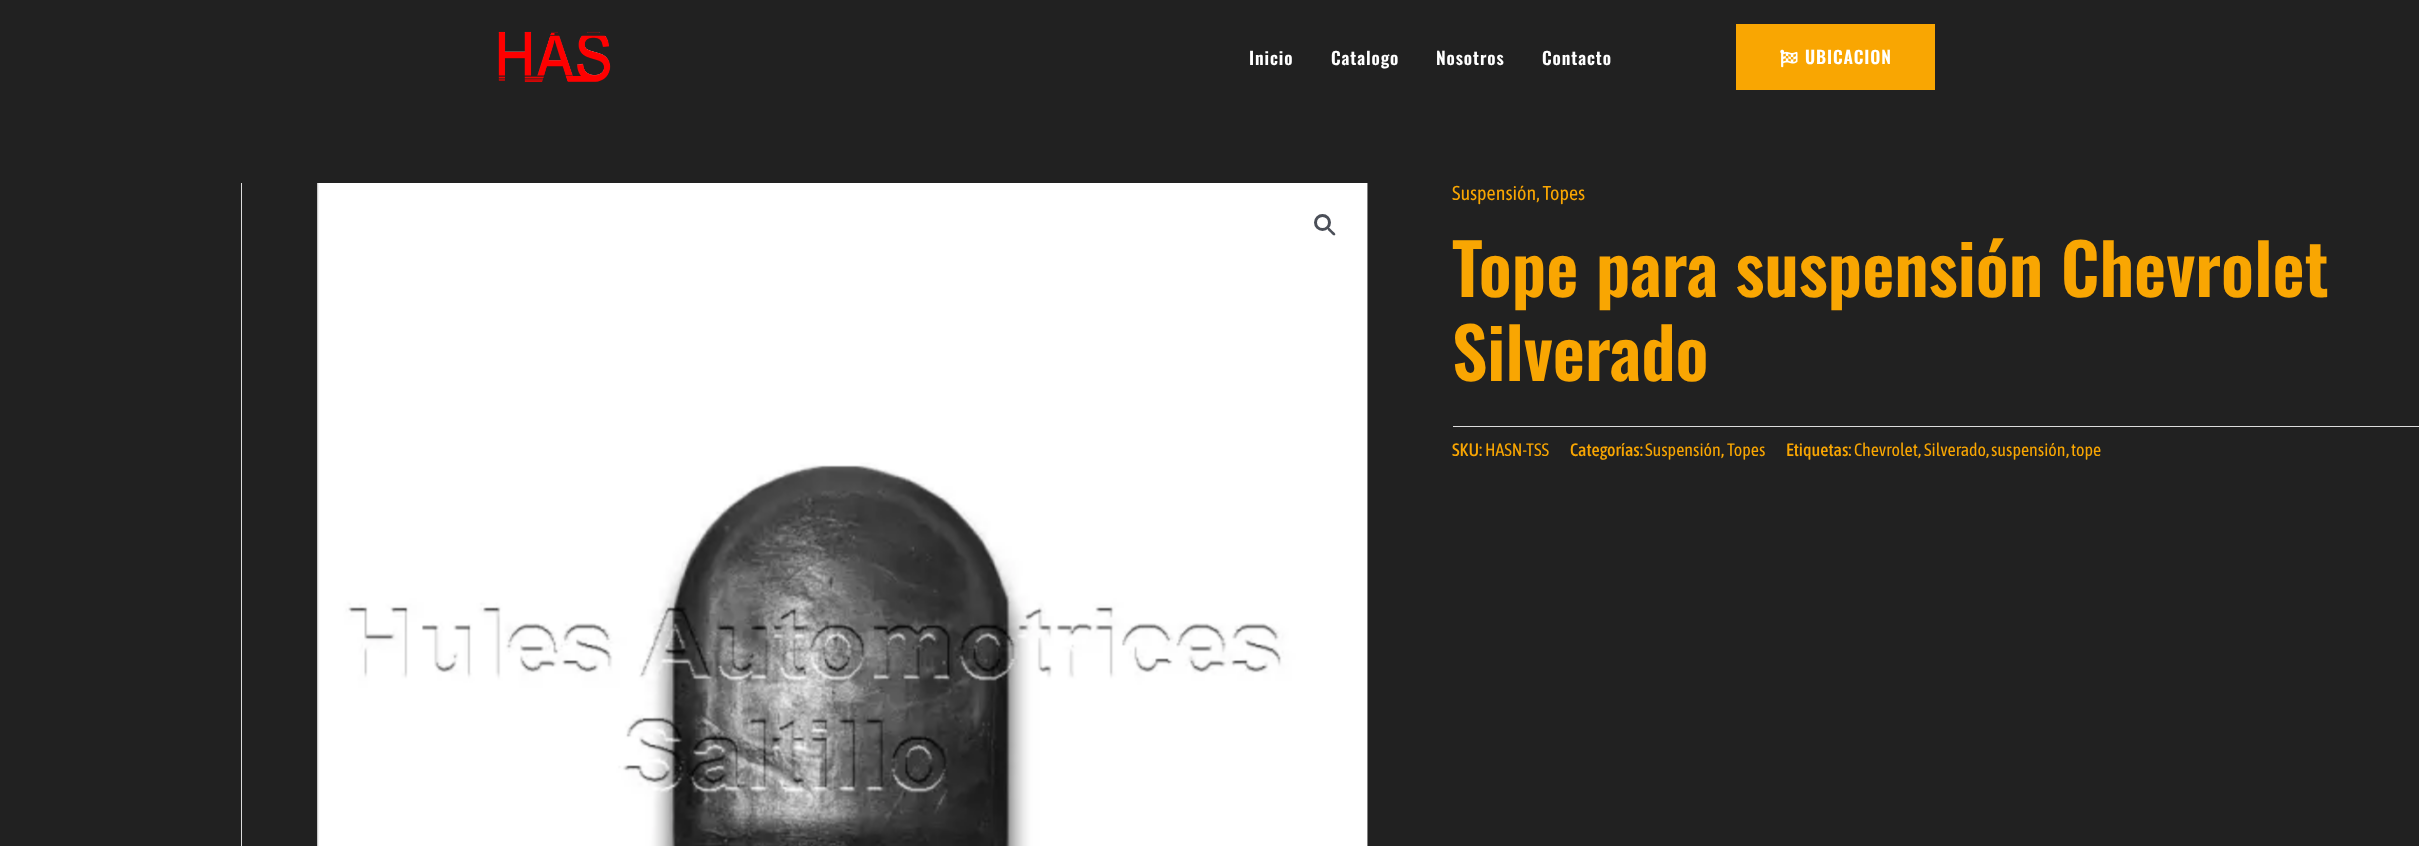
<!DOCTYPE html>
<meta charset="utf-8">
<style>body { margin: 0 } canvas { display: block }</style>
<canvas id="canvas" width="2419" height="846"></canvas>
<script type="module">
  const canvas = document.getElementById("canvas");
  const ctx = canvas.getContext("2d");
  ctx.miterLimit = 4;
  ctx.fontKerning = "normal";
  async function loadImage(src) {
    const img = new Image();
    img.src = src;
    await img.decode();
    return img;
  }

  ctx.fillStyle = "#212121";
  ctx.fillRect(0, 0, 2419, 846);
  ctx.drawImage(await loadImage("img1.png"), 498, 31, 113, 51);
  ctx.letterSpacing = "0.9px";
  ctx.font = "600 17.5px Oswald";
  ctx.fillStyle = "#ffffff";
  ctx.fillText("Inicio", 1249, 65);
  ctx.fillText("Catalogo", 1331, 65);
  ctx.fillText("Nosotros", 1436, 65);
  ctx.fillText("Contacto", 1542, 65);
  ctx.fillStyle = "#f9a602";
  ctx.fillRect(1736, 24, 199, 66);
  ctx.drawImage(await loadImage("img2.png"), 1780, 49, 18, 19);
  ctx.fillStyle = "#ffffff";
  ctx.fillText("UBICACION", 1805, 64);
  ctx.fillStyle = "#dddddd";
  ctx.fillRect(241, 183, 1, 663);
  ctx.drawImage(await loadImage("img3.png"), 317, 183, 1051, 663);
  ctx.beginPath();
  ctx.arc(1322.5, 222.5, 7, 0, Math.PI * 2);
  ctx.strokeStyle = "#4b4f58";
  ctx.lineWidth = 3;
  ctx.stroke();
  ctx.fillStyle = "#4b4f58";
  ctx.beginPath();
  ctx.moveTo(1328, 228);
  ctx.bezierCurveTo(1329.5, 226.5, 1331.5, 230, 1332.5, 231);
  ctx.bezierCurveTo(1333, 231.5, 1336.5, 234, 1335, 235);
  ctx.bezierCurveTo(1333.5, 236.5, 1331.5, 233.5, 1330.5, 232.5);
  ctx.bezierCurveTo(1330, 232, 1326.5, 229.5, 1328, 228);
  ctx.closePath();
  ctx.fill();
  ctx.letterSpacing = "0px";
  ctx.font = "20px Asap Condensed";
  ctx.fillStyle = "#f9a602";
  ctx.fillText("Suspensión, Topes", 1452, 200);
  ctx.font = "600 70px Oswald";
  ctx.fillText("Tope para suspensión Chevrolet", 1452, 297);
  ctx.fillText("Silverado", 1452, 381);
  ctx.fillStyle = "#dddddd";
  ctx.fillRect(1453, 426, 966, 1);
  ctx.font = "500 18px Asap Condensed";
  ctx.fillStyle = "#f9a602";
  ctx.fillText("SKU:", 1452, 456);
  ctx.font = "18px Asap Condensed";
  ctx.fillText("HASN-TSS", 1485, 456);
  ctx.font = "500 18px Asap Condensed";
  ctx.fillText("Categorías:", 1570, 456);
  ctx.font = "18px Asap Condensed";
  ctx.fillText("Suspensión", 1645, 456);
  ctx.font = "500 18px Asap Condensed";
  ctx.fillText(",", 1721, 456);
  ctx.font = "18px Asap Condensed";
  ctx.fillText("Topes", 1727, 456);
  ctx.font = "500 18px Asap Condensed";
  ctx.fillText("Etiquetas:", 1786, 456);
  ctx.font = "18px Asap Condensed";
  ctx.fillText("Chevrolet", 1854, 456);
  ctx.font = "500 18px Asap Condensed";
  ctx.fillText(",", 1918, 456);
  ctx.font = "18px Asap Condensed";
  ctx.fillText("Silverado", 1924, 456);
  ctx.font = "500 18px Asap Condensed";
  ctx.fillText(",", 1986, 456);
  ctx.font = "18px Asap Condensed";
  ctx.fillText("suspensión", 1991, 456);
  ctx.font = "500 18px Asap Condensed";
  ctx.fillText(",", 2066, 456);
  ctx.font = "18px Asap Condensed";
  ctx.fillText("tope", 2071, 456);
</script>
